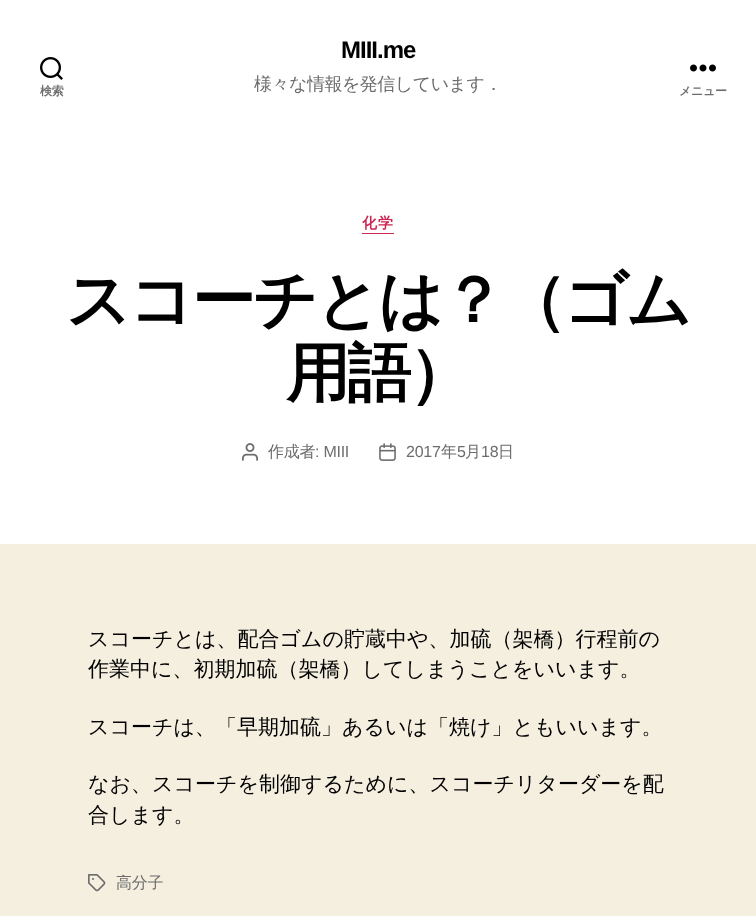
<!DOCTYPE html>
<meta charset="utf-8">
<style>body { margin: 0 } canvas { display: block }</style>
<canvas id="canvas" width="756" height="916"></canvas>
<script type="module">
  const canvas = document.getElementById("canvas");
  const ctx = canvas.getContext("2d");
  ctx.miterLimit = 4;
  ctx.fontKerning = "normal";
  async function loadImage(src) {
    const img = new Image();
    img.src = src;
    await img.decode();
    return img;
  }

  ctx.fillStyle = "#f5efe0";
  ctx.fillRect(0, 0, 756, 916);
  ctx.fillStyle = "#ffffff";
  ctx.fillRect(0, 0, 756, 544);
  ctx.drawImage(await loadImage("img1.png"), 40, 57, 23, 23);
  ctx.letterSpacing = "-0.25px";
  ctx.font = "bold 12px WenQuanYi Zen Hei";
  ctx.fillStyle = "#6d6d6d";
  ctx.fillText("検索", 40, 95);
  ctx.letterSpacing = "-1px";
  ctx.font = "bold 24px Liberation Sans";
  ctx.fillStyle = "#000000";
  ctx.fillText("MIII.me", 341, 58);
  ctx.letterSpacing = "-0.5px";
  ctx.font = "500 18px WenQuanYi Zen Hei";
  ctx.fillStyle = "#6d6d6d";
  ctx.fillText("様々な情報を発信しています．", 254, 90);
  ctx.drawImage(await loadImage("img2.png"), 690, 64, 26, 8);
  ctx.letterSpacing = "-0.25px";
  ctx.font = "bold 12px WenQuanYi Zen Hei";
  ctx.fillText("メニュー", 679, 95);
  ctx.fillStyle = "#cd2653";
  ctx.fillRect(362, 233, 32, 1);
  ctx.letterSpacing = "1px";
  ctx.font = "bold 15px WenQuanYi Zen Hei";
  ctx.fillText("化学", 362, 228);
  ctx.letterSpacing = "-2.75px";
  ctx.font = "bold 64px WenQuanYi Zen Hei";
  ctx.fillStyle = "#000000";
  ctx.fillText("スコーチとは？（ゴム", 66, 322);
  ctx.fillText("用語）", 286, 395);
  ctx.drawImage(await loadImage("img3.png"), 242, 443, 16, 18);
  ctx.letterSpacing = "-0.25px";
  ctx.font = "500 16px WenQuanYi Zen Hei";
  ctx.fillStyle = "#6d6d6d";
  ctx.fillText("作成者", 268, 457);
  ctx.font = "16px Liberation Sans";
  ctx.fillText(": MIII", 315, 457);
  ctx.drawImage(await loadImage("img4.png"), 379, 443, 17, 18);
  ctx.fillText("2017", 406, 457);
  ctx.font = "500 16px WenQuanYi Zen Hei";
  ctx.fillText("年", 441, 457);
  ctx.font = "16px Liberation Sans";
  ctx.fillText("5", 457, 457);
  ctx.font = "500 16px WenQuanYi Zen Hei";
  ctx.fillText("月", 465, 457);
  ctx.font = "16px Liberation Sans";
  ctx.fillText("18", 481, 457);
  ctx.font = "500 16px WenQuanYi Zen Hei";
  ctx.fillText("日", 498, 457);
  ctx.letterSpacing = "0px";
  ctx.font = "500 21px WenQuanYi Zen Hei";
  ctx.fillStyle = "#000000";
  ctx.fillText("スコーチとは、配合ゴムの貯蔵中や、加硫（架橋）行程前の", 88, 646);
  ctx.fillText("作業中に、初期加硫（架橋）してしまうことをいいます。", 88, 676);
  ctx.fillText("スコーチは、「早期加硫」あるいは「焼け」ともいいます。", 88, 734);
  ctx.fillText("なお、スコーチを制御するために、スコーチリターダーを配", 88, 791);
  ctx.fillText("合します。", 88, 822);
  ctx.drawImage(await loadImage("img5.png"), 88, 874, 18, 18);
  ctx.letterSpacing = "-0.25px";
  ctx.font = "500 16px WenQuanYi Zen Hei";
  ctx.fillStyle = "#6d6d6d";
  ctx.fillText("高分子", 116, 888);
</script>
